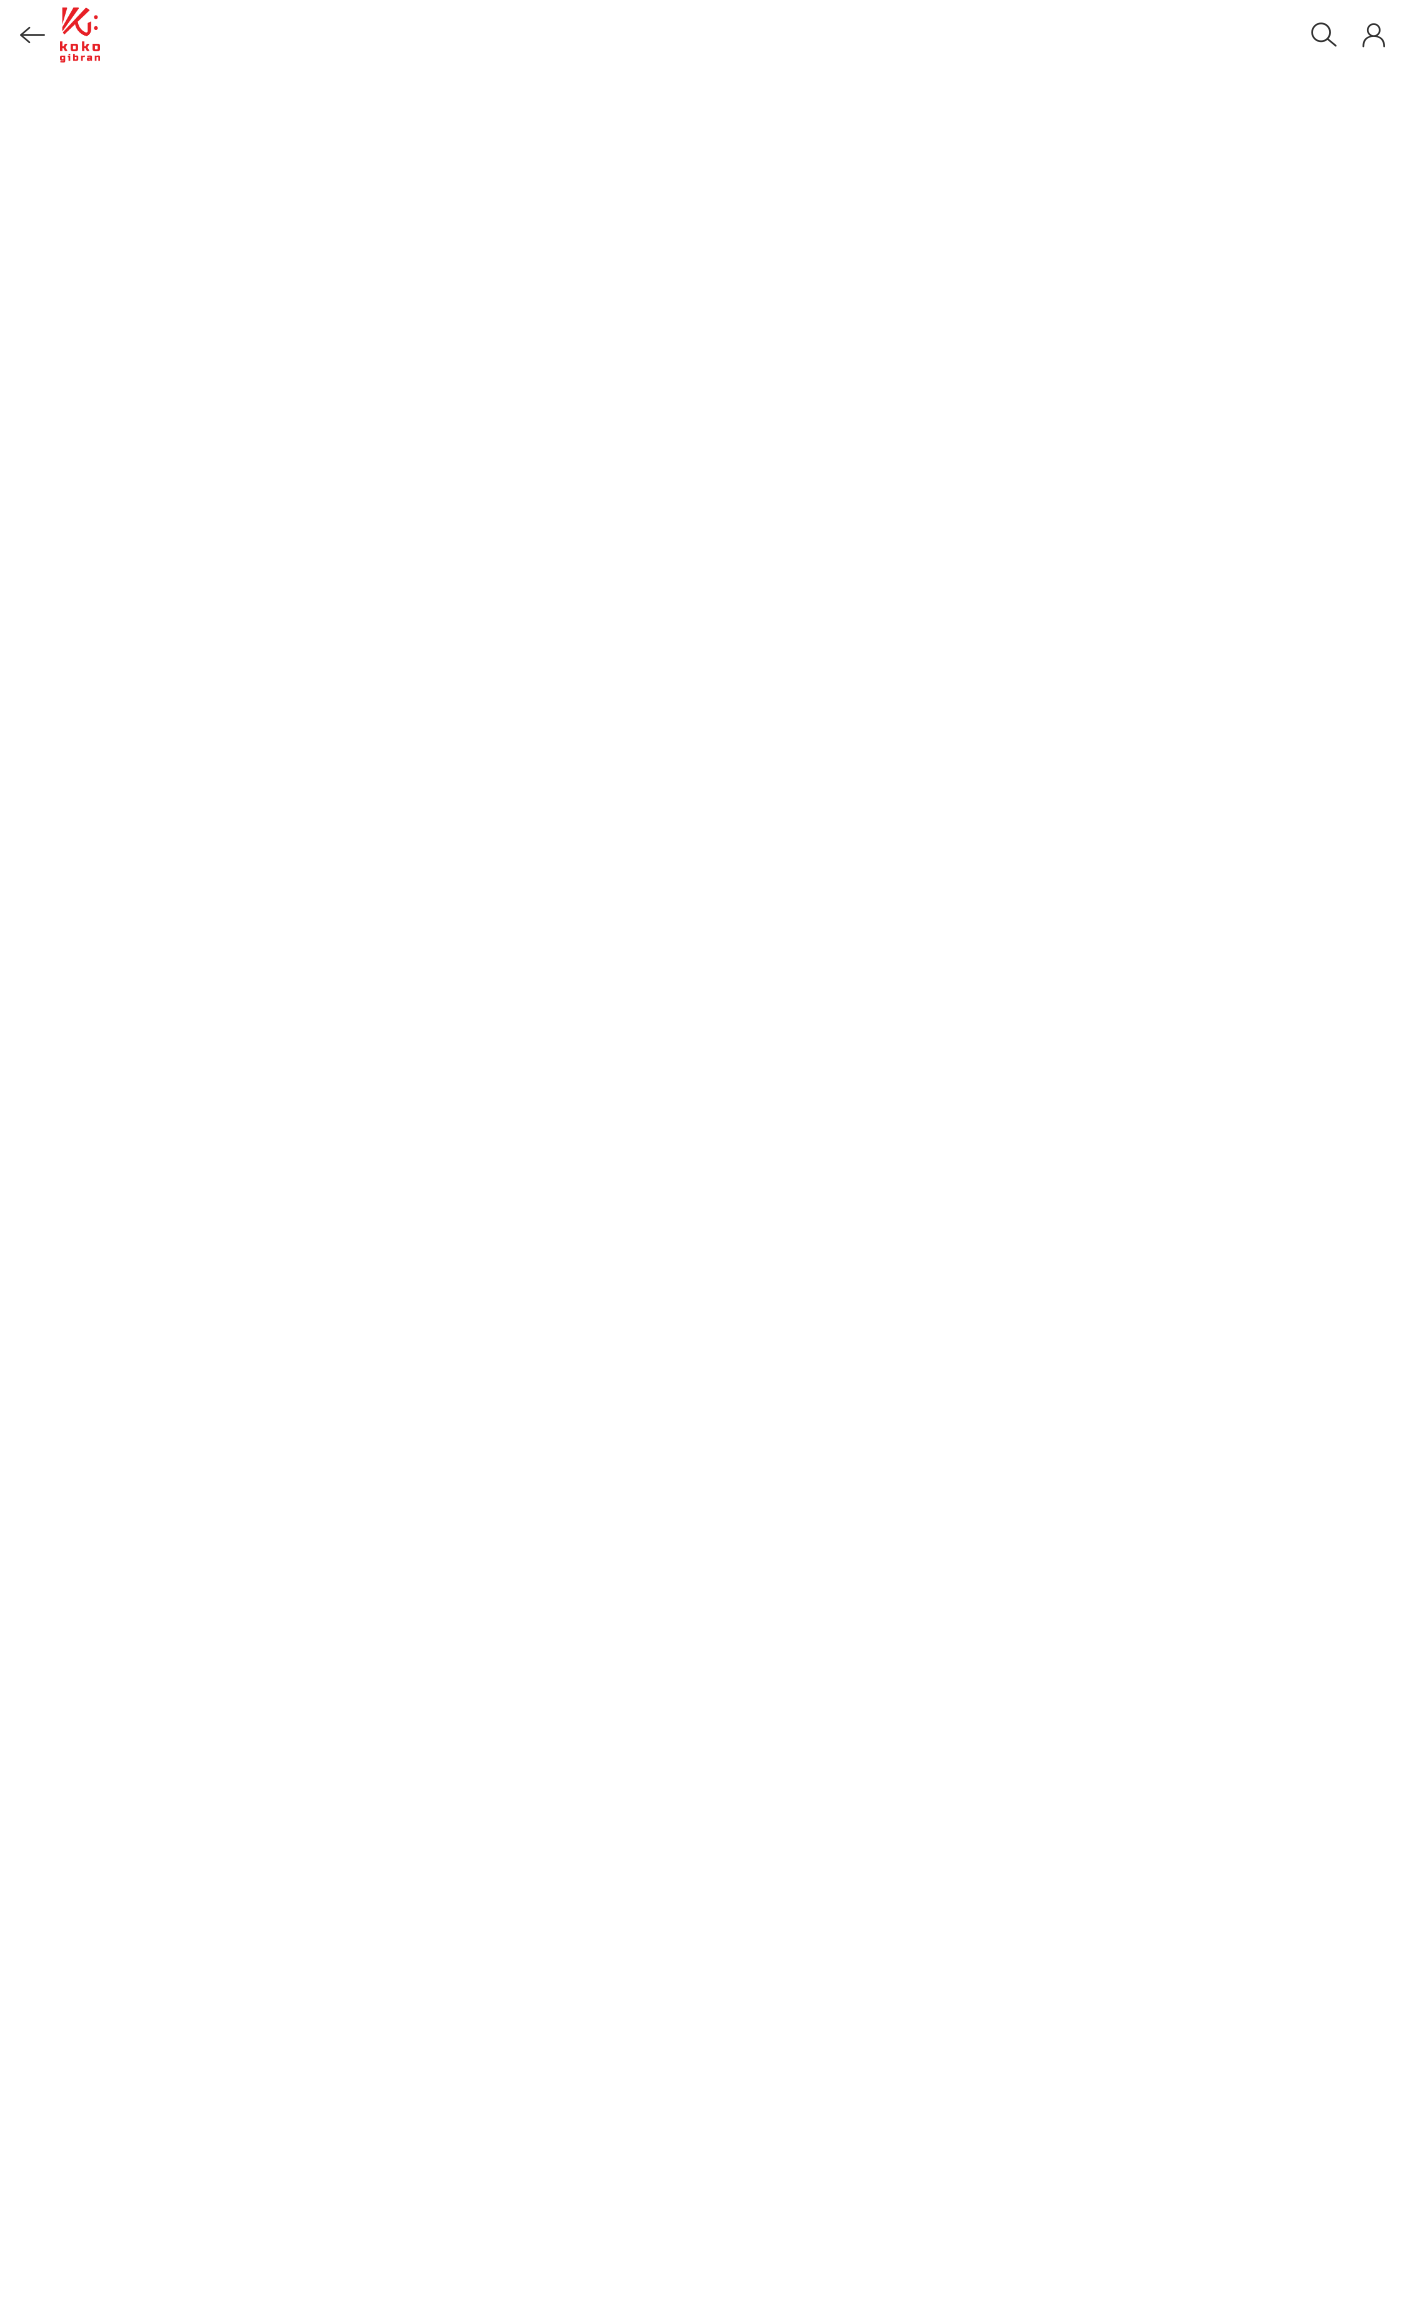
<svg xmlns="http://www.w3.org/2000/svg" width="1406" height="2298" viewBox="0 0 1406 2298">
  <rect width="100%" height="100%" fill="rgb(255,255,255)"/>
  <image x="20" y="26" width="25" height="18" href="pic1.png"/>
  <image x="60" y="7" width="40" height="56" href="pic2.png"/>
  <image x="1311" y="22" width="26" height="25" href="pic3.png"/>
  <image x="1362" y="23" width="23" height="25" href="pic4.png"/>
</svg>
